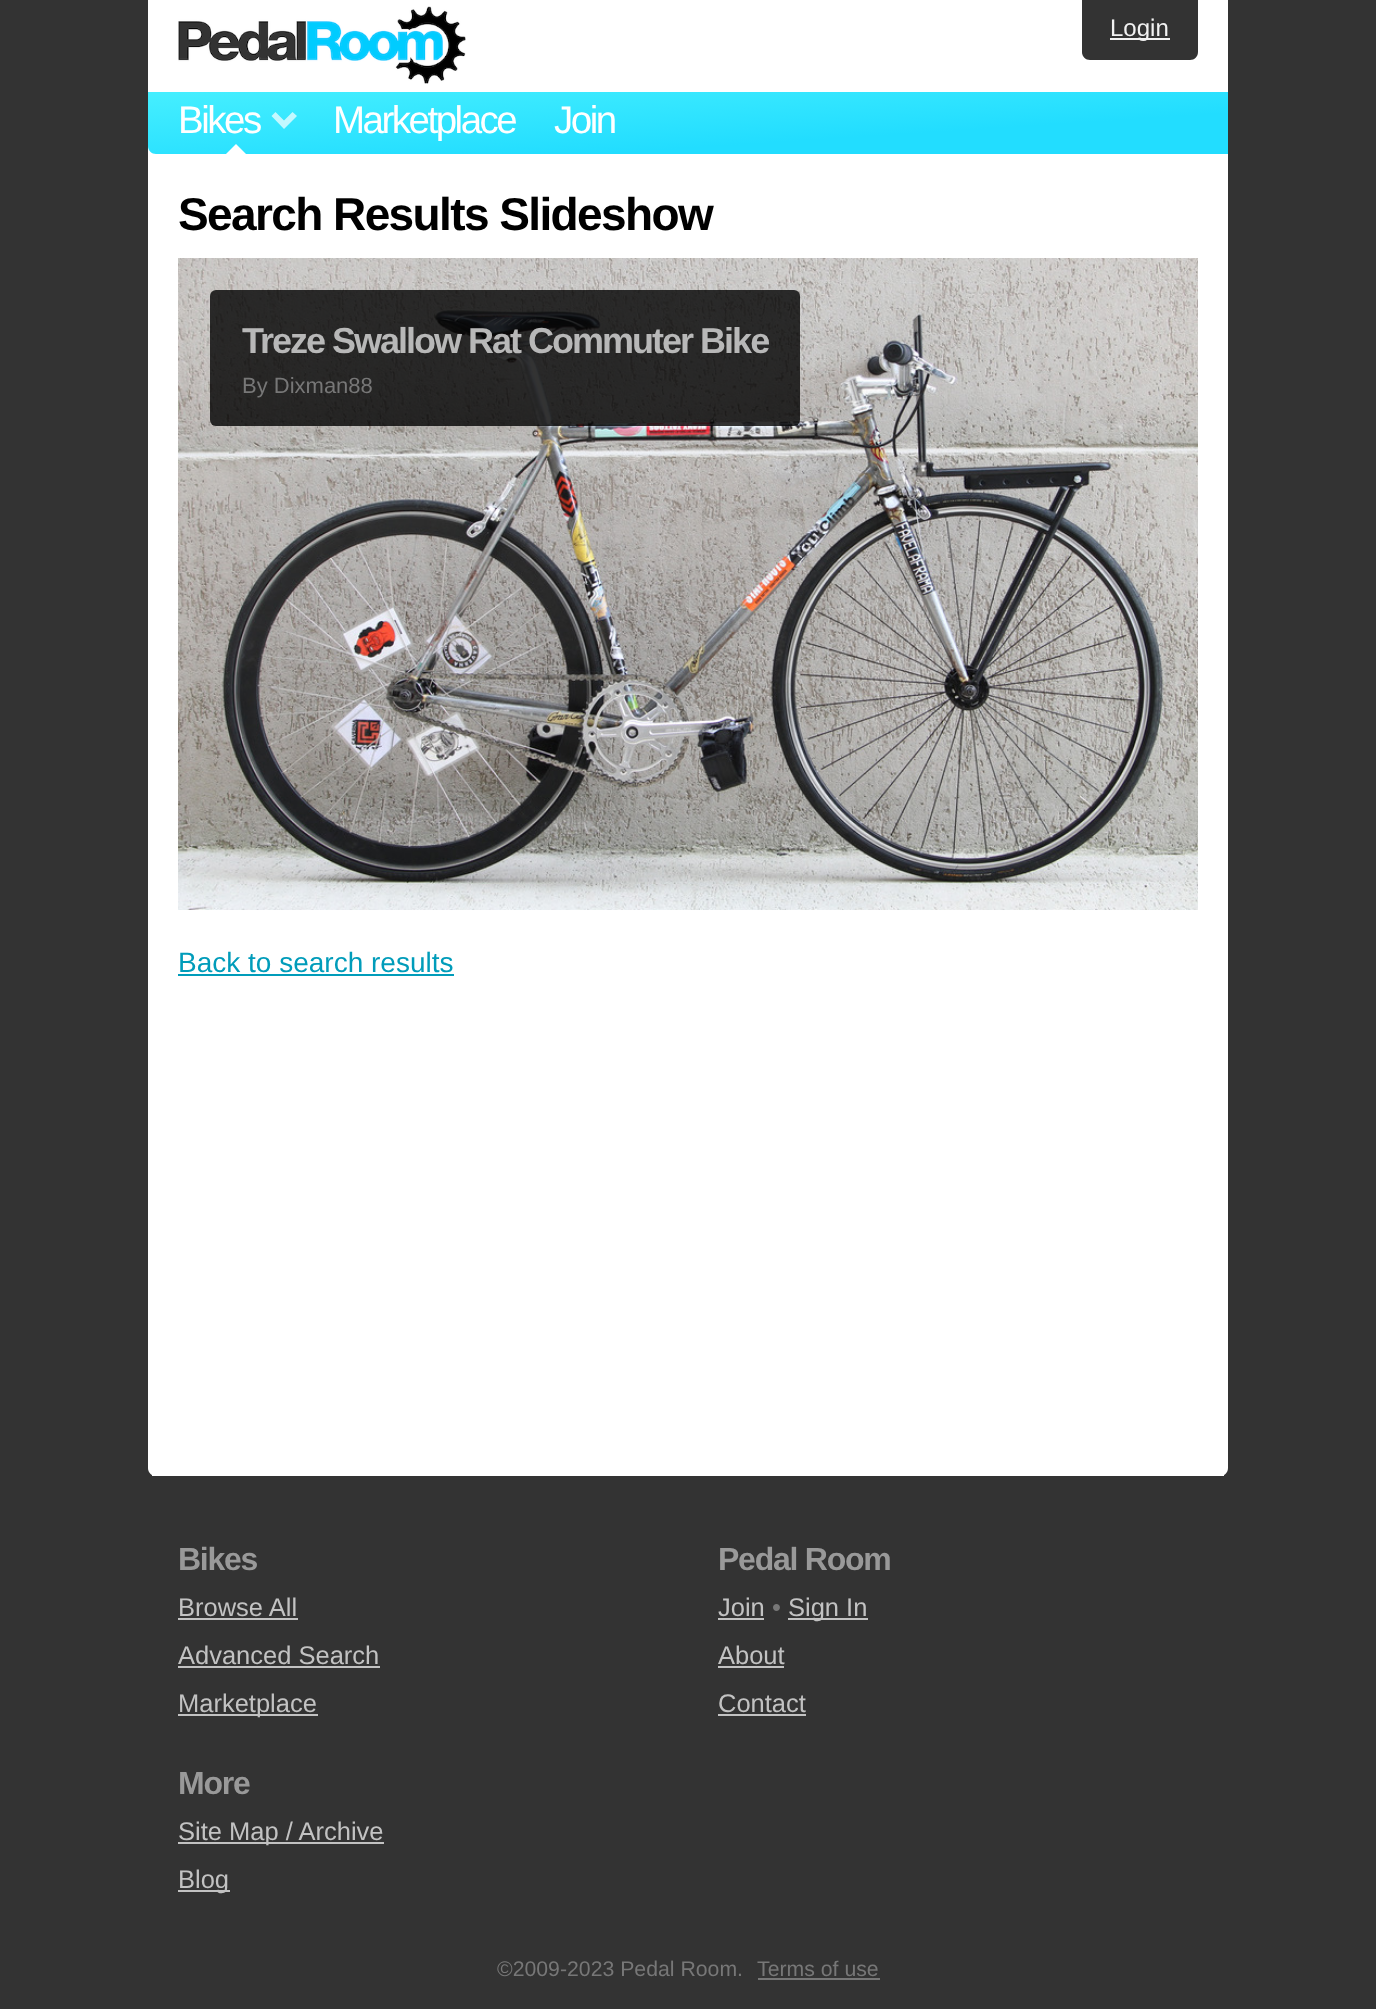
<svg xmlns="http://www.w3.org/2000/svg" width="1376" height="2009" viewBox="0 0 1376 2009">
  <defs>
    <linearGradient id="g1" gradientUnits="userSpaceOnUse" x1="684" y1="61" x2="692" y2="185"><stop offset="0" stop-color="rgb(68,238,255)"/><stop offset="0.7" stop-color="rgb(34,221,255)"/></linearGradient>
  </defs>
  <rect width="100%" height="100%" fill="rgb(51,51,51)"/>
  <rect x="148" y="0" width="1080" height="180" fill="rgb(255,255,255)"/>
  <image x="178" y="6" width="288" height="78" href="pic1.png"/>
  <path d="M1082 0H1198V52C1198 56.5 1194.5 60 1190 60H1090C1085.5 60 1082 56.5 1082 52Z" fill="rgb(51,51,51)"/>
  <rect x="1110" y="38" width="60" height="2" fill="rgb(242,242,242)"/>
  <text x="1110" y="36" font-family="Liberation Sans" font-size="24" fill="rgb(242,242,242)">Login</text>
  <path d="M148 92H1228V154H156C151.5 154 148 150.5 148 146Z" fill="url(#g1)"/>
  <text x="178" y="133" font-family="Liberation Sans" font-size="38.5" letter-spacing="-2.5" fill="rgb(255,255,255)">Bikes</text>
  <path d="M297 116L284 129V120.5L292.5 112ZM284 129L271.5 116L275.5 112L284 120.5Z" fill="rgba(255,255,255,0.7)"/>
  <path d="M246 154H226L236 144Z" fill="rgb(255,255,255)"/>
  <g font-family="Liberation Sans" font-size="38.5" letter-spacing="-2.5" fill="rgb(255,255,255)">
    <text x="333" y="133">Marketplace</text>
    <text x="554" y="133">Join</text>
  </g>
  <path d="M148 180H1228V1468C1228 1472.5 1224.5 1476 1220 1476H156C151.5 1476 148 1472.5 148 1468Z" fill="rgb(255,255,255)"/>
  <rect x="152" y="1475" width="1072" height="1" fill="rgb(255,255,255)"/>
  <text x="178" y="230" font-family="Liberation Sans" font-size="46" font-weight="bold" letter-spacing="-1.6" fill="rgb(0,0,0)">Search Results Slideshow</text>
  <image x="178" y="258" width="1020" height="652" href="pic2.png"/>
  <rect x="210" y="290" width="590" height="136" rx="6" fill="rgba(0,0,0,0.8)"/>
  <text x="242" y="353" font-family="Liberation Sans" font-size="36" font-weight="bold" letter-spacing="-2" fill="rgb(184,184,184)">Treze Swallow Rat Commuter Bike</text>
  <text x="242" y="393" font-family="Liberation Sans" font-size="22" fill="rgb(119,119,119)">By Dixman88</text>
  <text x="178" y="972" font-family="Liberation Sans" font-size="28" fill="rgb(0,156,186)">Back to search results</text>
  <rect x="178" y="974" width="276" height="2" fill="rgb(0,156,186)"/>
  <text x="178" y="1570" font-family="Liberation Sans" font-size="32" font-weight="bold" letter-spacing="-1.25" fill="rgb(153,153,153)">Bikes</text>
  <text x="178" y="1616" font-family="Liberation Sans" font-size="25.5" fill="rgb(194,194,194)">Browse All</text>
  <rect x="178" y="1618" width="120" height="2" fill="rgb(194,194,194)"/>
  <text x="178" y="1664" font-family="Liberation Sans" font-size="25.5" fill="rgb(194,194,194)">Advanced Search</text>
  <rect x="178" y="1666" width="202" height="2" fill="rgb(194,194,194)"/>
  <rect x="178" y="1714" width="140" height="2" fill="rgb(194,194,194)"/>
  <text x="178" y="1712" font-family="Liberation Sans" font-size="25.5" fill="rgb(194,194,194)">Marketplace</text>
  <text x="718" y="1570" font-family="Liberation Sans" font-size="32" font-weight="bold" letter-spacing="-1.25" fill="rgb(153,153,153)">Pedal Room</text>
  <text x="718" y="1616" font-family="Liberation Sans" font-size="25.5" fill="rgb(194,194,194)">Join</text>
  <rect x="718" y="1618" width="46" height="2" fill="rgb(194,194,194)"/>
  <text x="772" y="1616" font-family="Liberation Sans" font-size="25.5" fill="rgb(119,119,119)">•</text>
  <rect x="788" y="1618" width="80" height="2" fill="rgb(194,194,194)"/>
  <g font-family="Liberation Sans" font-size="25.5" fill="rgb(194,194,194)">
    <text x="788" y="1616">Sign In</text>
    <text x="718" y="1664">About</text>
  </g>
  <rect x="718" y="1666" width="66" height="2" fill="rgb(194,194,194)"/>
  <text x="718" y="1712" font-family="Liberation Sans" font-size="25.5" fill="rgb(194,194,194)">Contact</text>
  <rect x="718" y="1714" width="88" height="2" fill="rgb(194,194,194)"/>
  <text x="178" y="1794" font-family="Liberation Sans" font-size="32" font-weight="bold" letter-spacing="-1.25" fill="rgb(153,153,153)">More</text>
  <rect x="178" y="1842" width="206" height="2" fill="rgb(194,194,194)"/>
  <text x="178" y="1840" font-family="Liberation Sans" font-size="25.5" fill="rgb(194,194,194)">Site Map / Archive</text>
  <rect x="178" y="1890" width="52" height="2" fill="rgb(194,194,194)"/>
  <text x="178" y="1888" font-family="Liberation Sans" font-size="25.5" fill="rgb(194,194,194)">Blog</text>
  <g font-family="Liberation Sans" font-size="21.25" fill="rgb(119,119,119)">
    <text x="497" y="1976">©2009-2023 Pedal Room.</text>
    <text x="757" y="1976">Terms of use</text>
  </g>
  <rect x="758" y="1978" width="122" height="2" fill="rgb(119,119,119)"/>
</svg>
